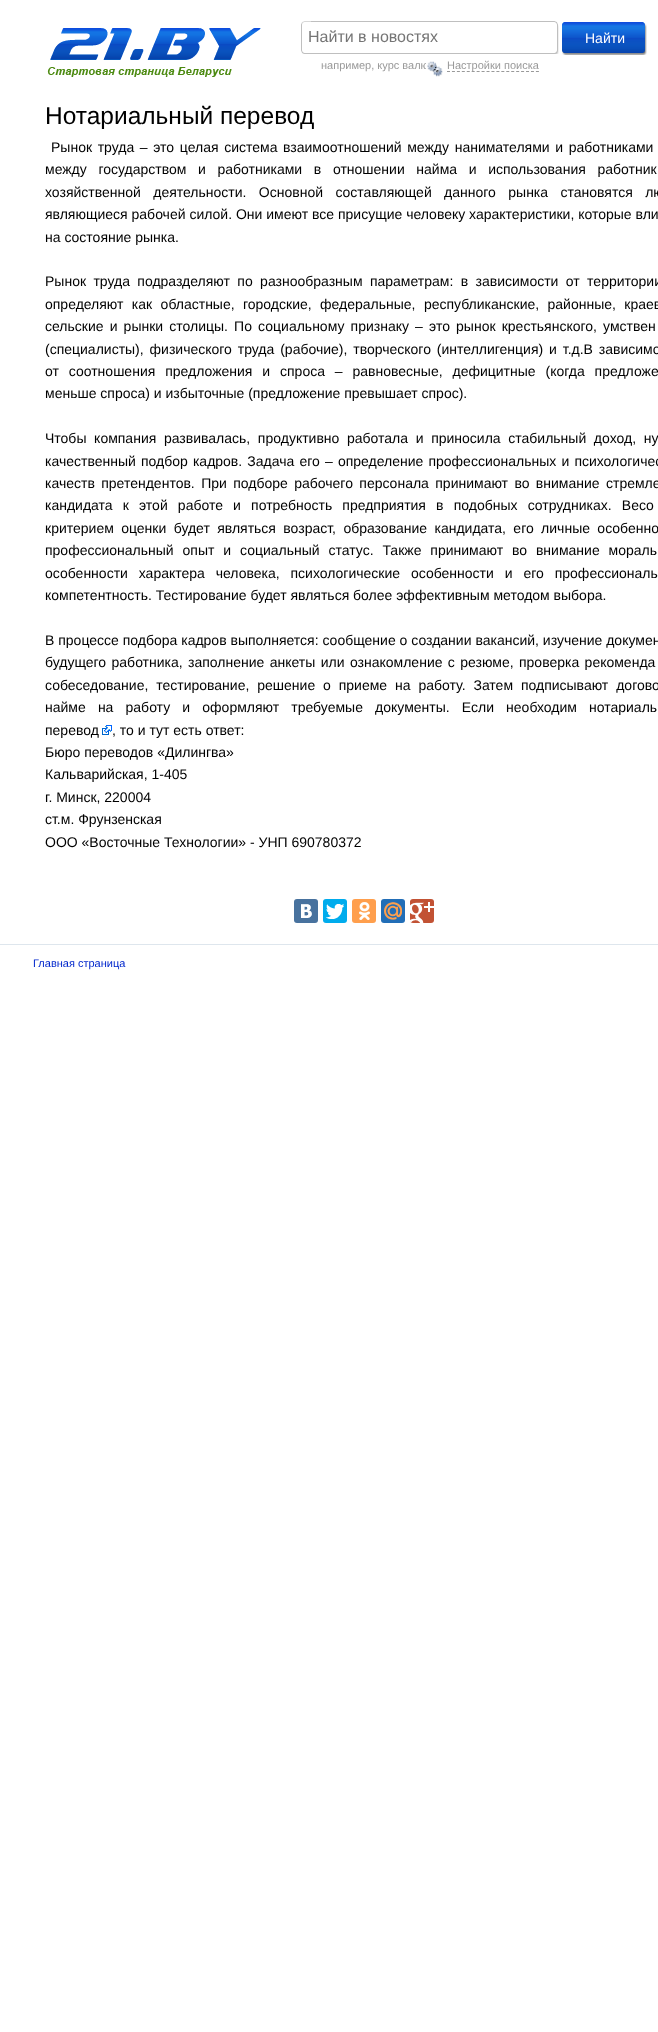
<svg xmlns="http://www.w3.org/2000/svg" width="658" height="2032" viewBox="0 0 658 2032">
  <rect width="100%" height="100%" fill="rgb(255,255,255)"/>
  <image x="47" y="28" width="214" height="49" href="pic1.png"/>
  <image x="311" y="21" width="248" height="33" href="pic2.png"/>
  <image x="300" y="21" width="11" height="33" href="pic3.png"/>
  <text x="308" y="42" font-family="Liberation Sans" font-size="16" fill="rgb(117,117,117)">Найти в новостях</text>
  <image x="562" y="22" width="85" height="33" href="pic4.png"/>
  <text x="585" y="43" font-family="Liberation Sans" font-size="14" fill="rgb(255,255,255)">Найти</text>
  <text x="321" y="69" font-family="Liberation Sans" font-size="11" fill="rgb(153,153,153)">например, курс валю</text>
  <image x="426" y="61" width="17" height="16" href="pic5.png"/>
  <path d="M447 71.5H539" fill="none" stroke="rgb(153,153,153)" stroke-dasharray="3 1.94"/>
  <text x="447" y="69" font-family="Liberation Sans" font-size="11" fill="rgb(153,153,153)">Настройки поиска</text>
  <text x="45" y="124" font-family="Liberation Sans" font-size="24.5" fill="rgb(0,0,0)">Нотариальный перевод</text>
  <g font-family="Liberation Sans" font-size="14" fill="rgb(0,0,0)">
    <text x="51" y="152" word-spacing="1.75">Рынок труда – это целая система взаимоотношений между нанимателями и работниками</text>
    <text>
      <tspan x="45" y="174" word-spacing="7.75">между государством и работниками в отношении найма и использования работник</tspan>
      <tspan x="45" y="197" word-spacing="8.5">хозяйственной деятельности. Основной составляющей данного рынка становятся лю</tspan>
      <tspan x="45" y="219">являющиеся рабочей силой. Они имеют все присущие человеку характеристики, которые вли</tspan>
      <tspan x="45" y="242">на состояние рынка.</tspan>
    </text>
    <text>
      <tspan x="45" y="286" word-spacing="3.5">Рынок труда подразделяют по разнообразным параметрам: в зависимости от территории</tspan>
      <tspan x="45" y="309" word-spacing="4.5">определяют как областные, городские, федеральные, республиканские, районные, краев</tspan>
      <tspan x="45" y="331" word-spacing="2.25">сельские и рынки столицы. По социальному признаку – это рынок крестьянского, умствен</tspan>
      <tspan x="45" y="354" word-spacing="2">(специалисты), физического труда (рабочие), творческого (интеллигенция) и т.д.В зависимо</tspan>
      <tspan x="45" y="376" word-spacing="6">от соотношения предложения и спроса – равновесные, дефицитные (когда предложе</tspan>
      <tspan x="45" y="398">меньше спроса) и избыточные (предложение превышает спрос).</tspan>
    </text>
    <text>
      <tspan x="45" y="443" word-spacing="3.75">Чтобы компания развивалась, продуктивно работала и приносила стабильный доход, ну</tspan>
      <tspan x="45" y="466" word-spacing="1.25">качественный подбор кадров. Задача его – определение профессиональных и психологичес</tspan>
      <tspan x="45" y="488" word-spacing="2.5">качеств претендентов. При подборе рабочего персонала принимают во внимание стремле</tspan>
      <tspan x="45" y="510" word-spacing="6.25">кандидата к этой работе и потребность предприятия в подобных сотрудниках. Весо</tspan>
      <tspan x="45" y="533" word-spacing="3.5">критерием оценки будет являться возраст, образование кандидата, его личные особенно</tspan>
      <tspan x="45" y="555" word-spacing="5">профессиональный опыт и социальный статус. Также принимают во внимание мораль</tspan>
      <tspan x="45" y="578" word-spacing="7">особенности характера человека, психологические особенности и его профессиональ</tspan>
      <tspan x="45" y="600">компетентность. Тестирование будет являться более эффективным методом выбора.</tspan>
    </text>
    <text>
      <tspan x="45" y="645">В процессе подбора кадров выполняется: сообщение о создании вакансий, изучение докумен</tspan>
      <tspan x="45" y="667" word-spacing="1.5">будущего работника, заполнение анкеты или ознакомление с резюме, проверка рекоменда</tspan>
      <tspan x="45" y="690" word-spacing="4">собеседование, тестирование, решение о приеме на работу. Затем подписывают догово</tspan>
      <tspan x="45" y="712" word-spacing="8.25">найме на работу и оформляют требуемые документы. Если необходим</tspan>
    </text>
    <text x="589" y="712">нотариаль</text>
    <text x="45" y="735">перевод</text>
  </g>
  <image x="102" y="725" width="10" height="10" href="pic6.png"/>
  <g font-family="Liberation Sans" font-size="14" fill="rgb(0,0,0)">
    <text x="112" y="735">, то и тут есть ответ:</text>
    <text>
      <tspan x="45" y="757">Бюро переводов «Дилингва»</tspan>
      <tspan x="45" y="779">Кальварийская, 1-405</tspan>
      <tspan x="45" y="802">г. Минск, 220004</tspan>
      <tspan x="45" y="824">ст.м. Фрунзенская</tspan>
      <tspan x="45" y="847">ООО «Восточные Технологии» - УНП 690780372</tspan>
    </text>
  </g>
  <rect x="294" y="899" width="24" height="24" rx="3" fill="rgb(72,114,158)"/>
  <image x="301" y="904" width="11" height="14" href="pic7.png"/>
  <rect x="323" y="899" width="24" height="24" rx="3" fill="rgb(0,172,237)"/>
  <image x="326" y="904" width="18" height="15" href="pic8.png"/>
  <rect x="352" y="899" width="24" height="24" rx="3" fill="rgb(255,159,77)"/>
  <image x="359" y="902" width="11" height="18" href="pic9.png"/>
  <rect x="381" y="899" width="24" height="24" rx="3" fill="rgb(34,110,183)"/>
  <image x="384" y="902" width="18" height="18" href="pic10.png"/>
  <rect x="410" y="899" width="24" height="24" rx="3" fill="rgb(194,82,52)"/>
  <image x="410" y="902" width="24" height="21" href="pic11.png"/>
  <rect x="0" y="944" width="658" height="1" fill="rgb(222,230,237)"/>
  <text x="33" y="967" font-family="Liberation Sans" font-size="11" fill="rgb(0,38,204)">Главная страница</text>
</svg>
